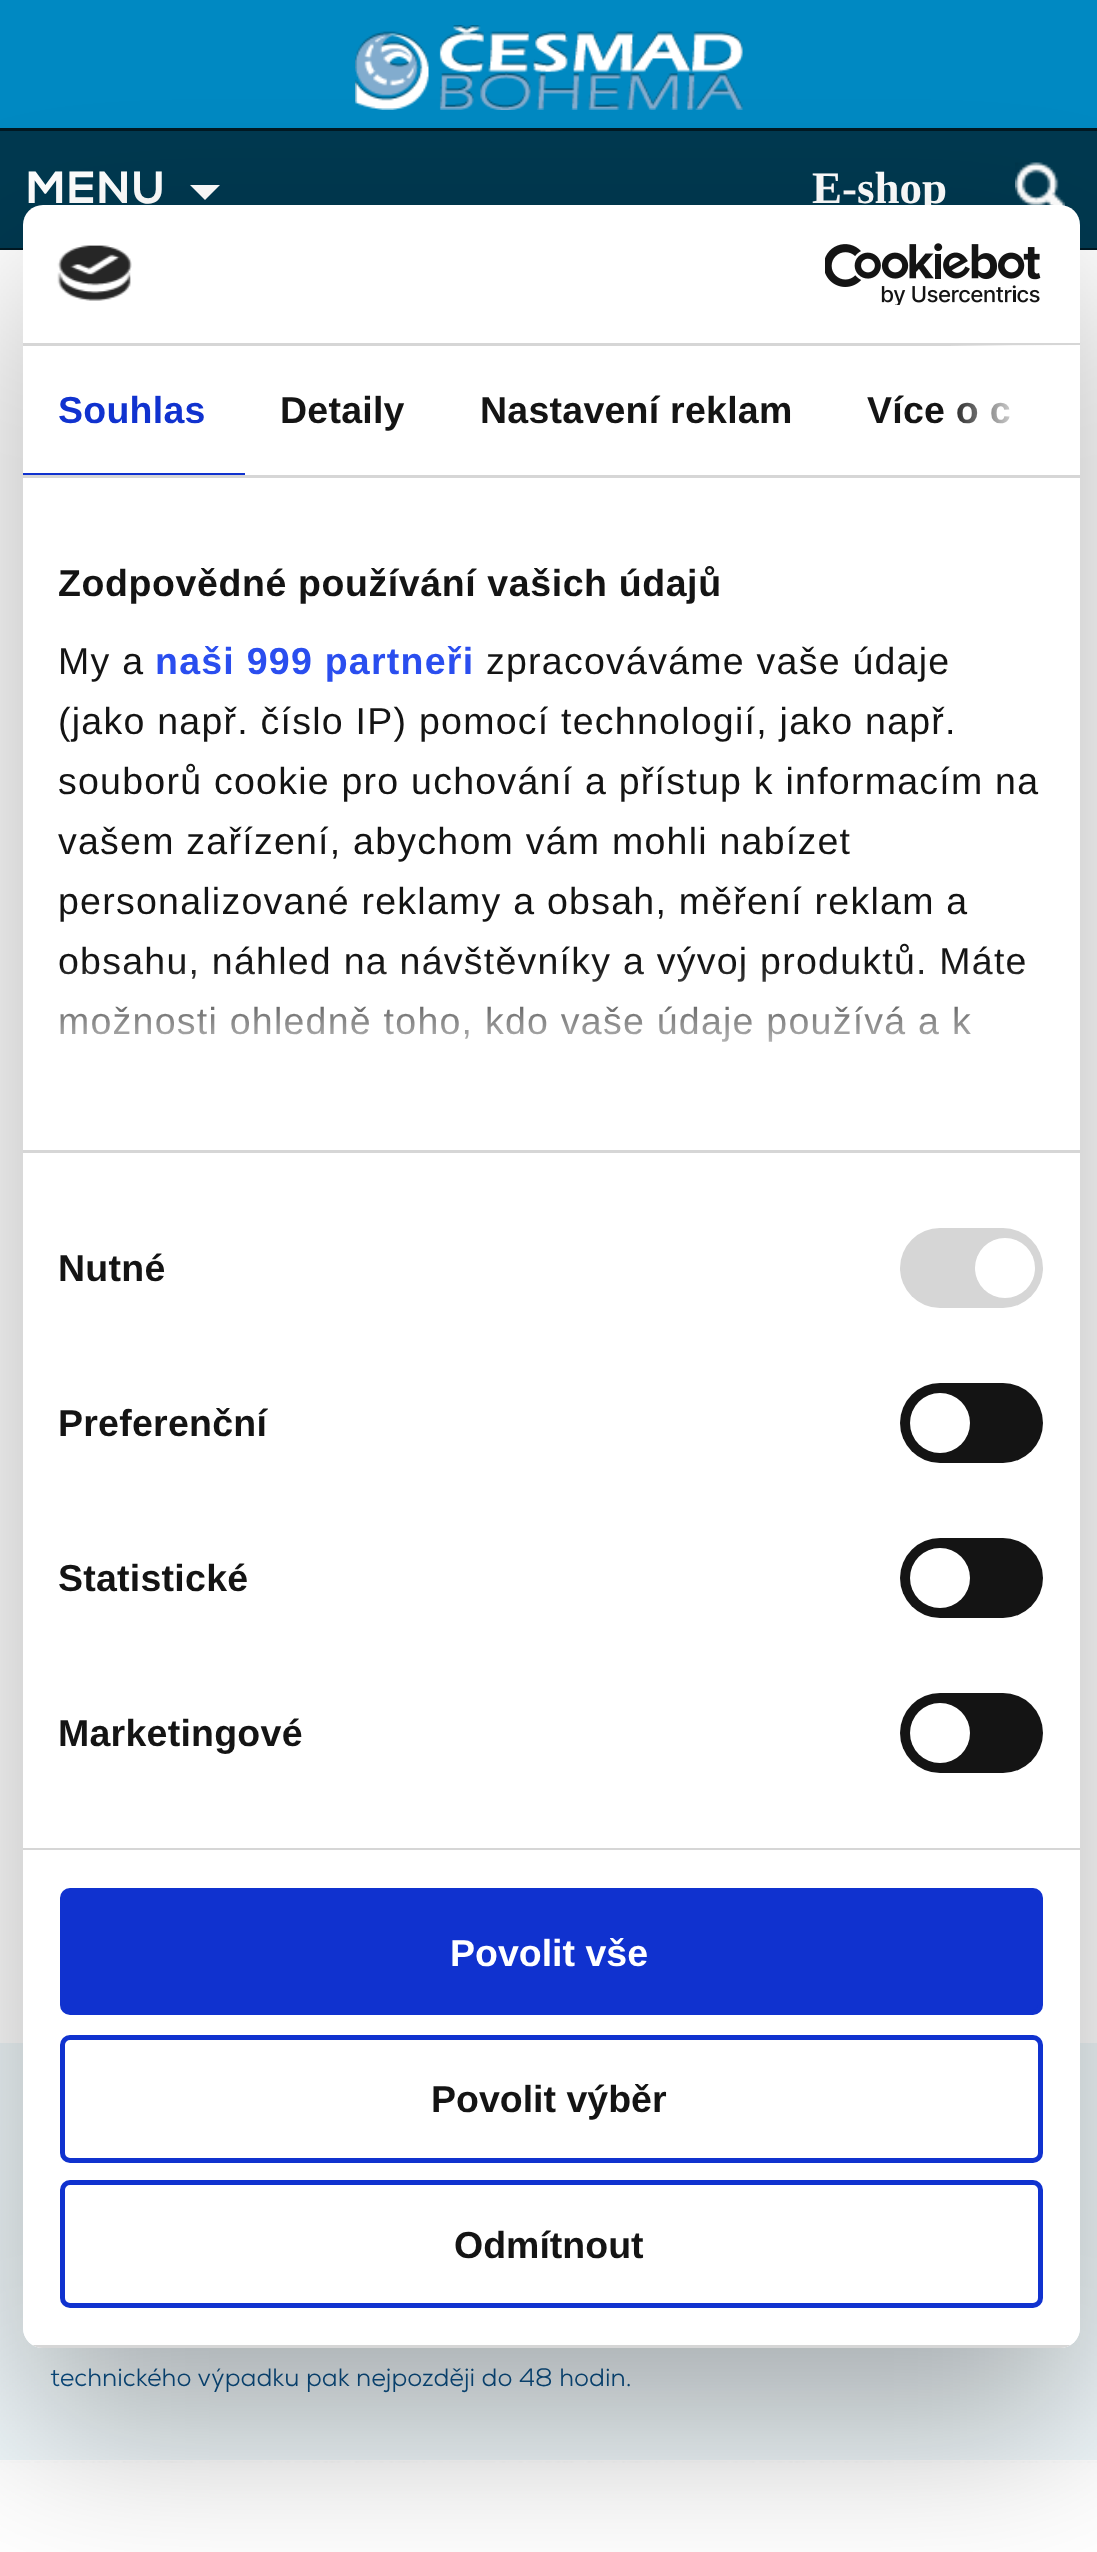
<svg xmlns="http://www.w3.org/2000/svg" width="1097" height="2552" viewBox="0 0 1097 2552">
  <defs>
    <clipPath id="clip1"><path d="M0 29H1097V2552H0ZM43 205H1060C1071 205 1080 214 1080 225V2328C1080 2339 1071 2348 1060 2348H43C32 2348 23 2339 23 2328V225C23 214 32 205 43 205Z" clip-rule="evenodd"/></clipPath>
    <linearGradient id="g1" gradientUnits="userSpaceOnUse" x1="1079" y1="411" x2="946" y2="411"><stop offset="0" stop-color="rgb(255,255,255)"/><stop offset="0.5" stop-color="rgb(255,255,255)" stop-opacity="0.8"/><stop offset="1" stop-color="rgb(255,255,255)" stop-opacity="0"/></linearGradient>
    <linearGradient id="g2" gradientUnits="userSpaceOnUse" x1="534" y1="1151" x2="534" y2="963"><stop offset="0" stop-color="rgb(255,255,255)"/><stop offset="0.5" stop-color="rgb(255,255,255)" stop-opacity="0.8"/><stop offset="1" stop-color="rgb(255,255,255)" stop-opacity="0"/></linearGradient>
    <clipPath id="clip2"><rect x="23" y="205" width="1057" height="2143" rx="20"/></clipPath>
  </defs>
  <rect width="100%" height="100%" fill="rgb(255,255,255)"/>
  <image x="0" y="2460" width="1097" height="3" href="pic1.png"/>
  <rect x="0" y="0" width="1097" height="128" fill="rgb(0,137,194)"/>
  <image x="355" y="25" width="388" height="85" href="pic2.png"/>
  <rect x="0" y="131" width="1097" height="117" fill="rgb(0,57,80)"/>
  <rect x="0" y="128" width="1097" height="3" fill="rgb(0,25,35)"/>
  <rect x="0" y="248" width="1097" height="2" fill="rgb(0,25,35)"/>
  <text x="25" y="203" font-family="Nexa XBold" font-size="45" font-weight="bold" fill="rgb(255,255,255)">MENU</text>
  <path d="M190 185H220L205 200Z" fill="rgb(255,255,255)"/>
  <text x="812" y="203" font-family="Liberation Serif" font-size="45" font-weight="bold" fill="rgb(255,255,255)">E-shop</text>
  <image x="1015" y="162" width="50" height="44" href="pic3.png"/>
  <rect x="0" y="2043" width="1097" height="417" fill="rgb(240,248,251)"/>
  <text x="50" y="2386" font-family="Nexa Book" font-size="25" fill="rgb(11,81,137)">technického výpadku pak nejpozději do 48 hodin.</text>
  <g clip-path="url(#clip1)">
    <rect x="23" y="285" width="1057" height="2143" rx="20" fill="rgba(0,0,0,0.3)" filter="blur(85px)"/>
  </g>
  <rect x="23" y="205" width="1057" height="2143" rx="20" fill="rgb(255,255,255)"/>
  <rect x="23" y="343" width="1057" height="3" fill="rgb(214,214,214)"/>
  <image x="57" y="245" width="75" height="56" href="pic4.png"/>
  <image x="825" y="243" width="216" height="62" href="pic5.png"/>
  <rect x="23" y="475" width="1057" height="3" fill="rgb(214,214,214)"/>
  <rect x="23" y="473" width="222" height="2" fill="rgb(16,50,207)"/>
  <text x="58" y="423" font-family="Liberation Sans" font-size="37.5" font-weight="bold" letter-spacing="0.25" fill="rgb(16,50,207)">Souhlas</text>
  <g font-family="Liberation Sans" font-size="37.5" font-weight="bold" letter-spacing="0.25" fill="rgb(20,20,20)">
    <text x="280" y="423">Detaily</text>
    <text x="480" y="423">Nastavení reklam</text>
    <text x="867" y="423">Více o c</text>
  </g>
  <rect x="951" y="345" width="129" height="79" fill="url(#g1)"/>
  <rect x="23" y="1150" width="1057" height="3" fill="rgb(214,214,214)"/>
  <text x="58" y="596" font-family="Liberation Sans" font-size="37.5" font-weight="bold" letter-spacing="0.6" fill="rgb(20,20,20)">Zodpovědné používání vašich údajů</text>
  <text x="58" y="674" font-family="Liberation Sans" font-size="37.5" letter-spacing="1.25" fill="rgb(20,20,20)">My a</text>
  <text x="155" y="674" font-family="Liberation Sans" font-size="37.5" font-weight="bold" letter-spacing="1.25" fill="rgb(42,78,239)">naši 999 partneři</text>
  <g font-family="Liberation Sans" font-size="37.5" letter-spacing="1.25" fill="rgb(20,20,20)">
    <text x="486" y="674">zpracováváme vaše údaje</text>
    <text>
      <tspan x="58" y="734">(jako např. číslo IP) pomocí technologií, jako např.</tspan>
      <tspan x="58" y="794">souborů cookie pro uchování a přístup k informacím na</tspan>
      <tspan x="58" y="854">vašem zařízení, abychom vám mohli nabízet</tspan>
      <tspan x="58" y="914">personalizované reklamy a obsah, měření reklam a</tspan>
      <tspan x="58" y="974">obsahu, náhled na návštěvníky a vývoj produktů. Máte</tspan>
      <tspan x="58" y="1034">možnosti ohledně toho, kdo vaše údaje používá a k</tspan>
    </text>
  </g>
  <rect x="59" y="966" width="965" height="76" fill="url(#g2)"/>
  <rect x="23" y="1848" width="1057" height="2" fill="rgb(214,214,214)"/>
  <text x="58" y="1281" font-family="Liberation Sans" font-size="37.5" font-weight="bold" letter-spacing="0.25" fill="rgb(20,20,20)">Nutné</text>
  <rect x="900" y="1228" width="143" height="80" rx="40" fill="rgb(214,214,214)"/>
  <circle cx="1005" cy="1268" r="30" fill="rgb(255,255,255)"/>
  <text x="58" y="1436" font-family="Liberation Sans" font-size="37.5" font-weight="bold" letter-spacing="0.25" fill="rgb(20,20,20)">Preferenční</text>
  <rect x="900" y="1383" width="143" height="80" rx="40" fill="rgb(20,20,20)"/>
  <circle cx="940" cy="1423" r="30" fill="rgb(255,255,255)"/>
  <text x="58" y="1591" font-family="Liberation Sans" font-size="37.5" font-weight="bold" letter-spacing="0.25" fill="rgb(20,20,20)">Statistické</text>
  <rect x="900" y="1538" width="143" height="80" rx="40" fill="rgb(20,20,20)"/>
  <circle cx="940" cy="1578" r="30" fill="rgb(255,255,255)"/>
  <text x="58" y="1746" font-family="Liberation Sans" font-size="37.5" font-weight="bold" letter-spacing="0.25" fill="rgb(20,20,20)">Marketingové</text>
  <rect x="900" y="1693" width="143" height="80" rx="40" fill="rgb(20,20,20)"/>
  <circle cx="940" cy="1733" r="30" fill="rgb(255,255,255)"/>
  <g clip-path="url(#clip2)">
    <rect x="32" y="2345" width="1039" height="3" fill="rgb(214,214,214)"/>
  </g>
  <rect x="62.5" y="1890.5" width="978" height="122" rx="7.5" fill="rgb(16,50,207)" stroke="rgb(16,50,207)" stroke-width="5"/>
  <text x="450" y="1966" font-family="Liberation Sans" font-size="37.5" font-weight="bold" fill="rgb(255,255,255)">Povolit vše</text>
  <rect x="62.5" y="2037.5" width="978" height="123" rx="7.5" fill="none" stroke="rgb(16,50,207)" stroke-width="5"/>
  <text x="431" y="2112" font-family="Liberation Sans" font-size="37.5" font-weight="bold" fill="rgb(20,20,20)">Povolit výběr</text>
  <rect x="62.5" y="2182.5" width="978" height="123" rx="7.5" fill="none" stroke="rgb(16,50,207)" stroke-width="5"/>
  <text x="454" y="2258" font-family="Liberation Sans" font-size="37.5" font-weight="bold" fill="rgb(20,20,20)">Odmítnout</text>
</svg>
